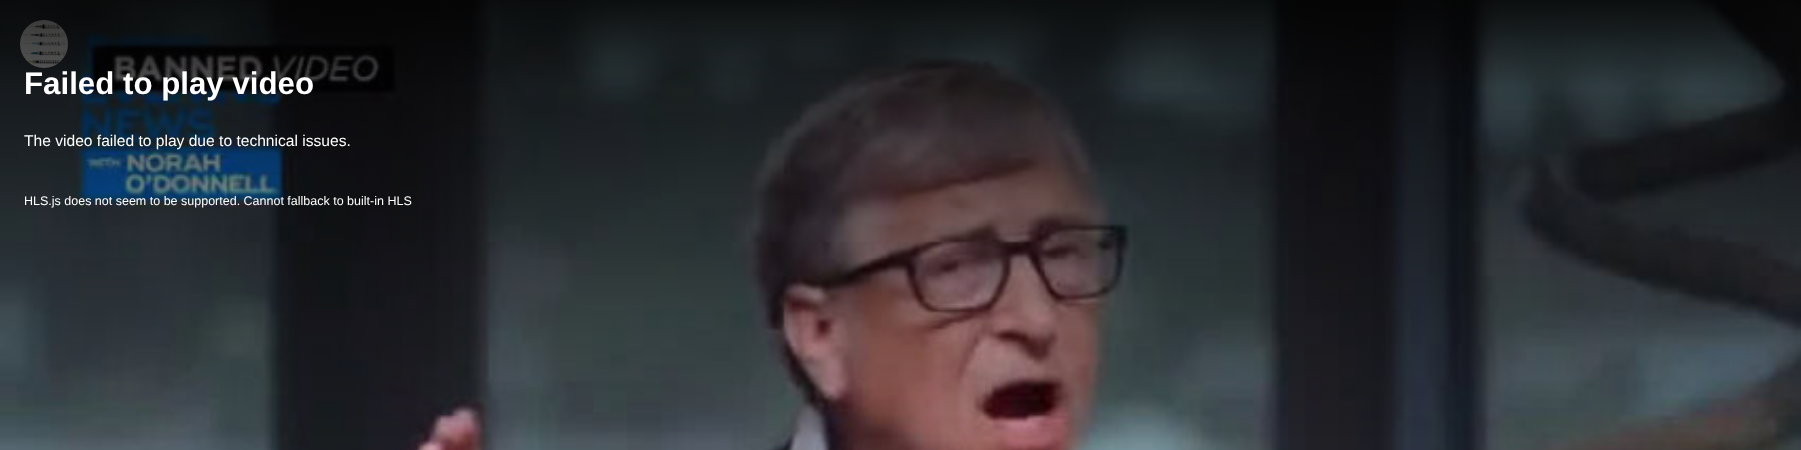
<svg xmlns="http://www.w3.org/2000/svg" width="1801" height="450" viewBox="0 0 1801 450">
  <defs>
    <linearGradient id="g1" gradientUnits="userSpaceOnUse" x1="901" y1="0" x2="901" y2="450"><stop offset="0" stop-color="rgb(0,0,0)" stop-opacity="0.8"/><stop offset="1" stop-color="rgb(0,0,0)" stop-opacity="0"/></linearGradient>
  </defs>
  <rect width="100%" height="100%" fill="rgb(255,255,255)"/>
  <image x="0" y="0" width="1801" height="450" href="pic1.png"/>
  <image x="20" y="20" width="48" height="48" href="pic2.png"/>
  <rect x="0" y="0" width="1801" height="438" fill="url(#g1)"/>
  <text x="24" y="94" font-family="Liberation Sans" font-size="31.25" font-weight="bold" fill="rgb(255,255,255)">Failed to play video</text>
  <text x="24" y="146" font-family="Liberation Sans" font-size="15.6" fill="rgb(255,255,255)">The video failed to play due to technical issues.</text>
  <text x="24" y="205" font-family="Liberation Sans" font-size="12.5" fill="rgb(255,255,255)">HLS.js does not seem to be supported. Cannot fallback to built-in HLS</text>
</svg>
